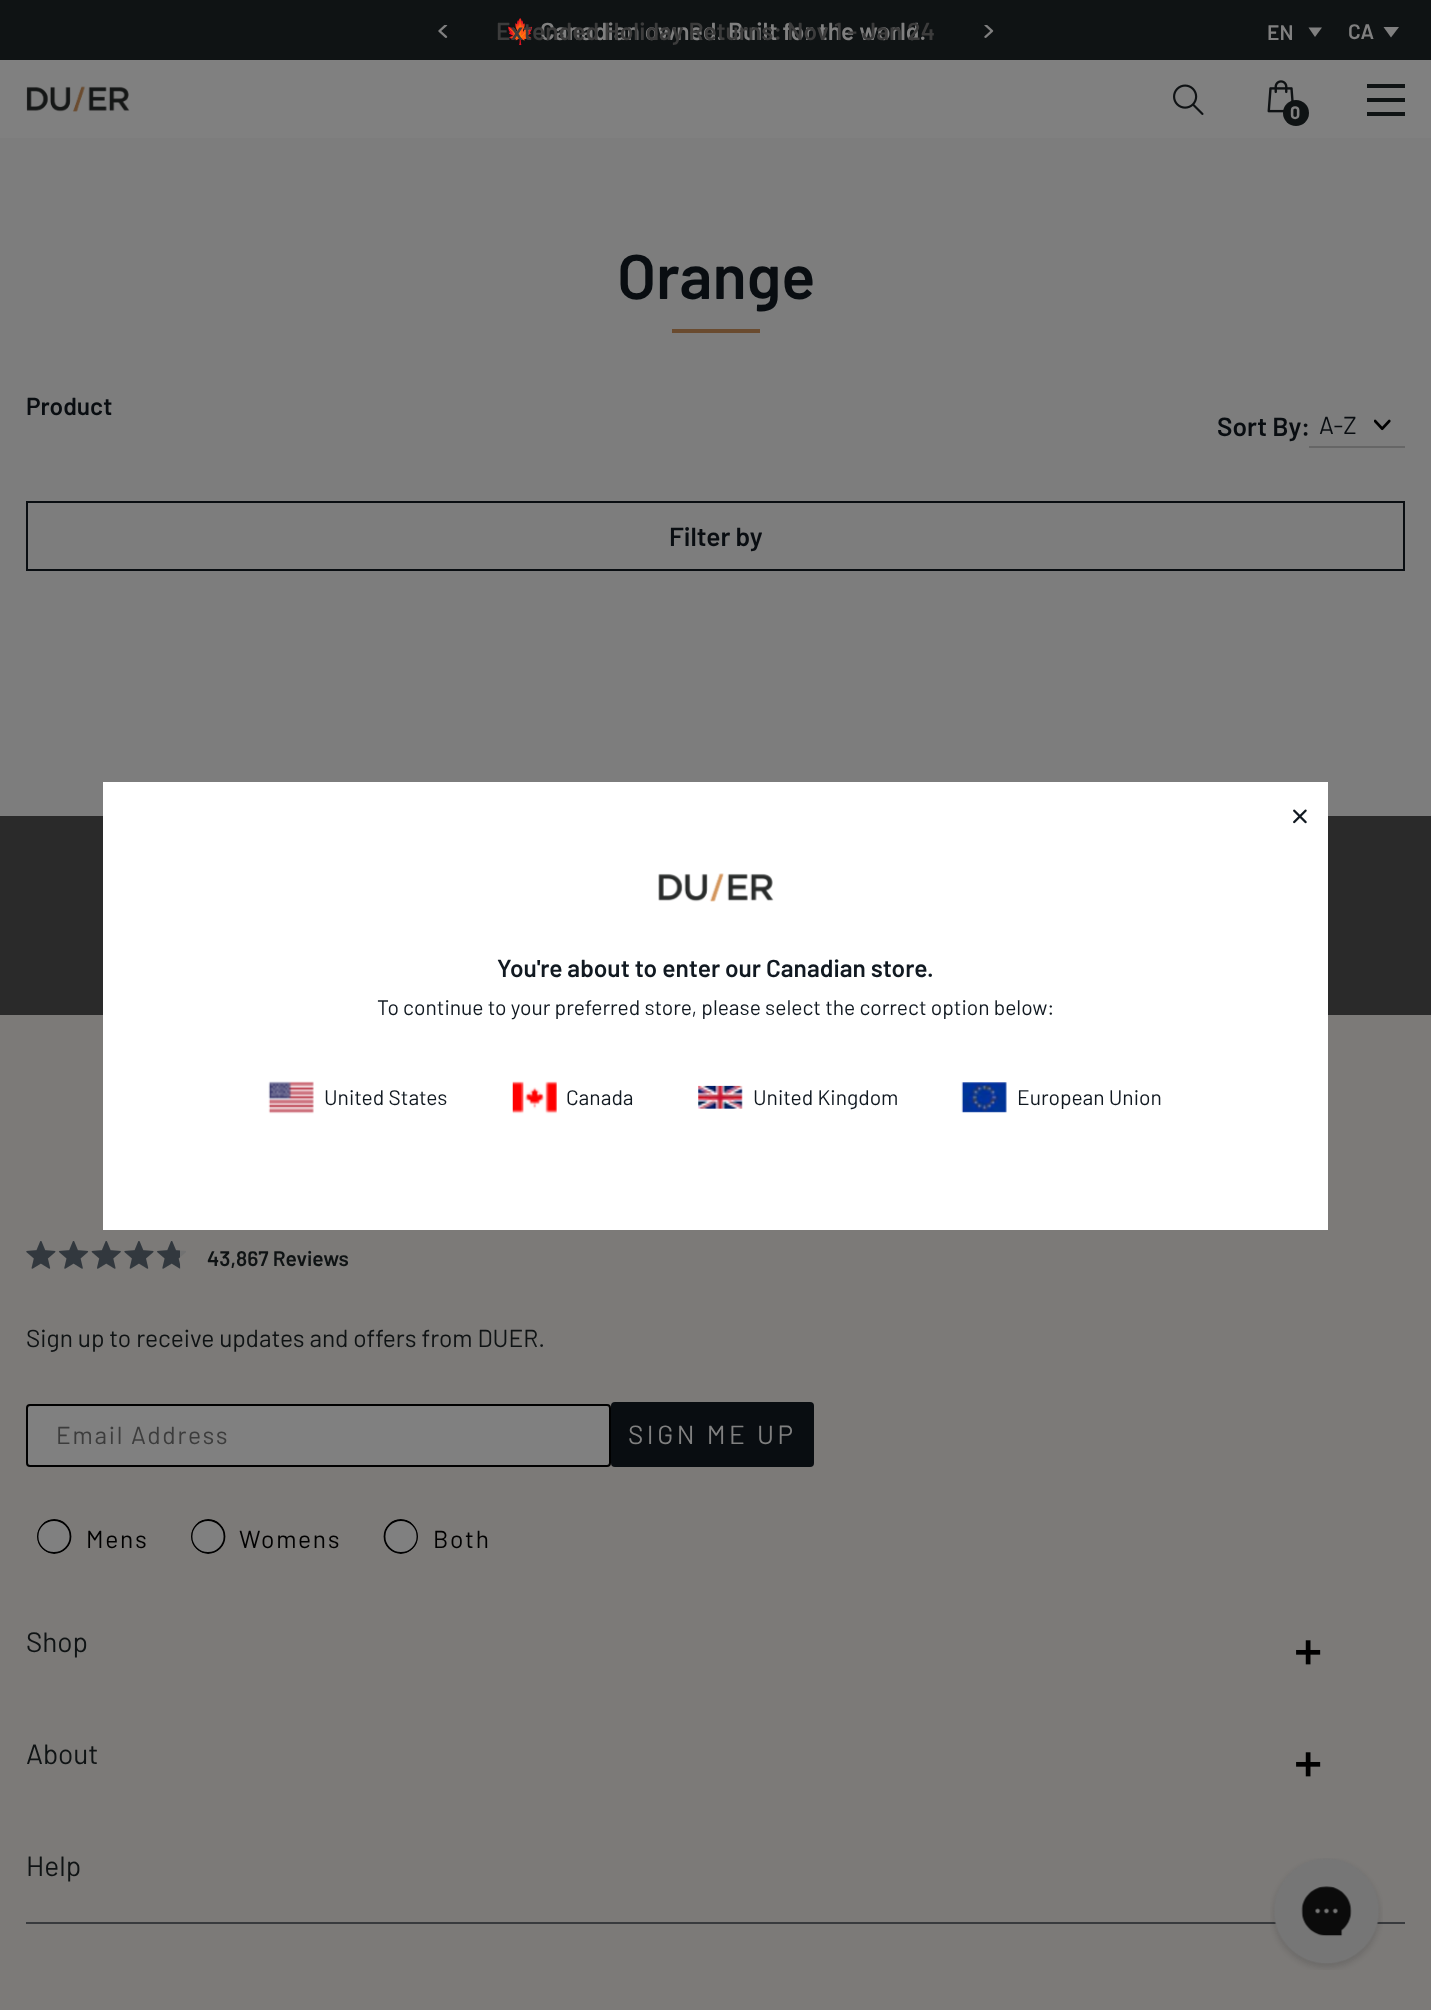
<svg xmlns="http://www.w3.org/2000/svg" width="1431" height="2010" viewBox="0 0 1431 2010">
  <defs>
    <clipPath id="clip1"><rect x="37" y="1519" width="35" height="35" rx="17.5"/></clipPath>
    <clipPath id="clip2"><rect x="191" y="1519" width="35" height="35" rx="17.5"/></clipPath>
    <clipPath id="clip3"><rect x="383" y="1519" width="35" height="35" rx="17.5"/></clipPath>
  </defs>
  <rect width="100%" height="100%" fill="rgb(128,128,128)"/>
  <rect x="0" y="0" width="1431" height="60" fill="rgb(15,19,20)"/>
  <text x="505" y="40" font-family="Noto Color Emoji" font-size="24.5" font-weight="bold" fill="rgb(128,128,128)">🍁</text>
  <text x="540" y="40" font-family="Barlow" font-size="24.5" font-weight="600" fill="rgb(128,128,128)">Canadian owned. Built for the world.</text>
  <text x="496" y="40" font-family="Barlow" font-size="24.5" font-weight="600" fill="rgb(60,60,60)">Extended Holiday Returns: Nov 1 - Jan 24</text>
  <image x="438" y="25" width="10" height="13" href="pic1.png"/>
  <image x="984" y="25" width="10" height="13" href="pic2.png"/>
  <text x="1267" y="40" font-family="Barlow" font-size="21" font-weight="600" fill="rgb(128,128,128)">EN</text>
  <path d="M1315 37L1308.5 27.5H1322Z" fill="rgb(128,128,128)"/>
  <text x="1348" y="39" font-family="Barlow" font-size="21" font-weight="600" fill="rgb(128,128,128)">CA</text>
  <path d="M1391 37.5L1383.5 27H1399Z" fill="rgb(128,128,128)"/>
  <image x="26" y="86" width="104" height="26" href="pic3.png"/>
  <image x="1173" y="84" width="31" height="31" href="pic4.png"/>
  <image x="1267" y="80" width="27" height="33" href="pic5.png"/>
  <circle cx="1296" cy="113" r="13" fill="rgb(15,19,20)"/>
  <text x="1290" y="119" font-family="Barlow" font-size="18" font-weight="bold" fill="rgb(128,128,128)">0</text>
  <rect x="1367" y="98" width="38" height="4" fill="rgb(15,19,20)"/>
  <rect x="1367" y="84" width="38" height="4" fill="rgb(15,19,20)"/>
  <rect x="1367" y="112" width="38" height="4" fill="rgb(15,19,20)"/>
  <rect x="0" y="138" width="1431" height="678" fill="rgb(125,125,125)"/>
  <text x="617" y="299" font-family="Barlow" font-size="63" font-weight="600" fill="rgb(9,13,17)">Orange</text>
  <rect x="672" y="329" width="88" height="4" fill="rgb(106,75,47)"/>
  <text x="26" y="415" font-family="Barlow" font-size="24.5" font-weight="600" fill="rgb(9,13,17)">Product</text>
  <text x="1217" y="436" font-family="Barlow" font-size="26.25" font-weight="600" fill="rgb(9,13,17)">Sort By:</text>
  <rect x="1309" y="446" width="96" height="2" fill="rgb(102,102,102)"/>
  <text x="1319" y="434" font-family="Barlow" font-size="24.5" fill="rgb(9,13,17)">A-Z</text>
  <image x="1374" y="419" width="17" height="12" href="pic6.png"/>
  <rect x="27" y="502" width="1377" height="68" fill="none" stroke="rgb(9,13,17)" stroke-width="2"/>
  <text x="669" y="546" font-family="Barlow" font-size="26.25" font-weight="600" fill="rgb(9,13,17)">Filter by</text>
  <rect x="0" y="816" width="1431" height="199" fill="rgb(42,42,42)"/>
  <rect x="0" y="1015" width="1431" height="995" fill="rgb(124,122,120)"/>
  <rect x="103" y="782" width="1225" height="448" fill="rgb(255,255,255)"/>
  <image x="1293" y="809" width="14" height="15" href="pic7.png"/>
  <image x="658" y="873" width="116" height="29" href="pic8.png"/>
  <text x="497" y="977" font-family="Barlow" font-size="24.5" font-weight="600" fill="rgb(17,25,33)">You're about to enter our Canadian store.</text>
  <text x="377" y="1015" font-family="Barlow" font-size="21" fill="rgb(17,25,33)">To continue to your preferred store, please select the correct option below:</text>
  <image x="268" y="1081" width="46" height="33" href="pic9.png"/>
  <text x="324" y="1105" font-family="Barlow" font-size="21" fill="rgb(17,25,33)">United States</text>
  <image x="512" y="1081" width="45" height="33" href="pic10.png"/>
  <text x="566" y="1105" font-family="Barlow" font-size="21" fill="rgb(17,25,33)">Canada</text>
  <image x="698" y="1085" width="45" height="24" href="pic11.png"/>
  <text x="753" y="1105" font-family="Barlow" font-size="21" fill="rgb(17,25,33)">United Kingdom</text>
  <image x="961" y="1082" width="46" height="31" href="pic12.png"/>
  <text x="1017" y="1105" font-family="Barlow" font-size="21" fill="rgb(17,25,33)">European Union</text>
  <image x="26" y="1241" width="160" height="28" href="pic13.png"/>
  <image x="26" y="1241" width="154" height="28" href="pic14.png"/>
  <text x="207" y="1266" font-family="Barlow" font-size="21" font-weight="600" fill="rgb(15,19,20)">43,867 Reviews</text>
  <text x="26" y="1347" font-family="Barlow" font-size="24.5" fill="rgb(15,19,20)">Sign up to receive updates and offers from DUER.</text>
  <rect x="27" y="1405" width="583" height="61" rx="3" fill="rgb(128,128,128)" stroke="rgb(0,0,0)" stroke-width="2"/>
  <text x="56" y="1444" font-family="Barlow" font-size="24.5" letter-spacing="1.75" fill="rgb(60,60,60)">Email Address</text>
  <rect x="611" y="1402" width="203" height="65" rx="4" fill="rgb(9,13,17)"/>
  <text x="628" y="1444" font-family="Barlow" font-size="26.25" letter-spacing="3.5" fill="rgb(128,128,128)">SIGN ME UP</text>
  <circle cx="54" cy="1536.5" r="16.5" fill="rgb(128,128,128)"/>
  <g clip-path="url(#clip1)">
    <circle cx="54" cy="1536.5" r="16.5" fill="none" stroke="rgb(0,0,0)" stroke-width="1.8"/>
  </g>
  <text x="86" y="1548" font-family="Barlow" font-size="24.5" letter-spacing="1.75" fill="rgb(0,0,0)">Mens</text>
  <circle cx="208" cy="1536.5" r="16.5" fill="rgb(128,128,128)"/>
  <g clip-path="url(#clip2)">
    <circle cx="208" cy="1536.5" r="16.5" fill="none" stroke="rgb(0,0,0)" stroke-width="1.8"/>
  </g>
  <text x="239" y="1548" font-family="Barlow" font-size="24.5" letter-spacing="1.75" fill="rgb(0,0,0)">Womens</text>
  <circle cx="401" cy="1536.5" r="16.5" fill="rgb(128,128,128)"/>
  <g clip-path="url(#clip3)">
    <circle cx="401" cy="1536.5" r="16.5" fill="none" stroke="rgb(0,0,0)" stroke-width="1.8"/>
  </g>
  <text x="433" y="1548" font-family="Barlow" font-size="24.5" letter-spacing="1.75" fill="rgb(0,0,0)">Both</text>
  <text x="26" y="1652" font-family="Barlow" font-size="28" fill="rgb(15,19,20)">Shop</text>
  <image x="1296" y="1640" width="25" height="25" href="pic15.png"/>
  <text x="26" y="1764" font-family="Barlow" font-size="28" fill="rgb(15,19,20)">About</text>
  <image x="1296" y="1752" width="25" height="25" href="pic15.png"/>
  <rect x="26" y="1922" width="1379" height="2" fill="rgb(56,58,61)"/>
  <text x="26" y="1876" font-family="Barlow" font-size="28" fill="rgb(15,19,20)">Help</text>
  <image x="1270" y="1858" width="113" height="112" href="pic16.png"/>
</svg>
